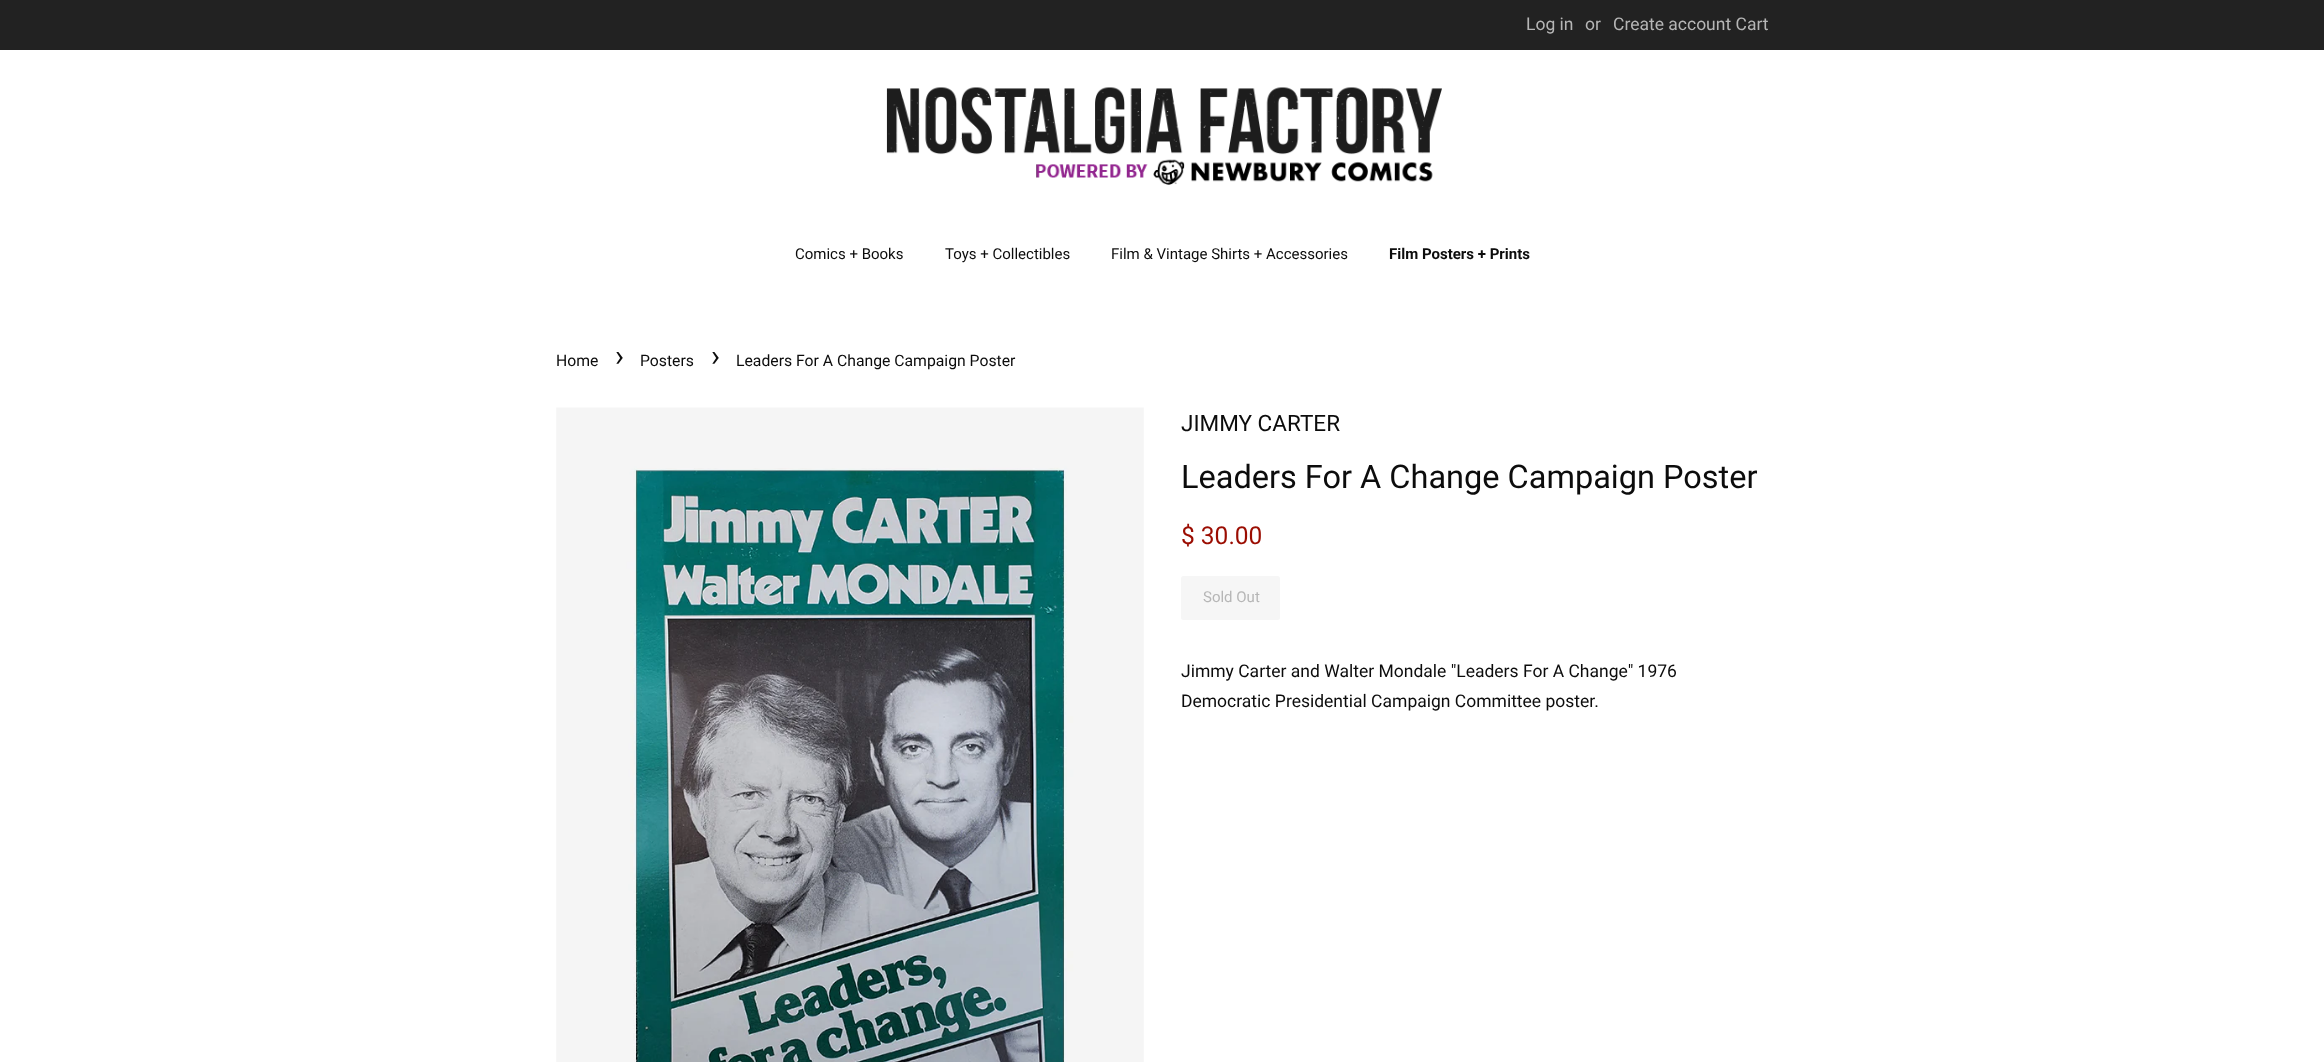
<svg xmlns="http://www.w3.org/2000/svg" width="2324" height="1062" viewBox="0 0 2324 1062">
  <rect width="100%" height="100%" fill="rgb(255,255,255)"/>
  <rect x="0" y="0" width="2324" height="50" fill="rgb(34,34,34)"/>
  <g font-family="Roboto" font-size="17.5" fill="rgb(182,182,182)">
    <text x="1526" y="30">Log in</text>
    <text x="1585" y="30">or</text>
    <text x="1613" y="30">Create account Cart</text>
  </g>
  <image x="886" y="87" width="556" height="98" href="pic1.png"/>
  <g font-family="Roboto" font-size="15" fill="rgb(12,12,12)">
    <text x="795" y="259">Comics + Books</text>
    <text x="945" y="259">Toys + Collectibles</text>
    <text x="1111" y="259">Film &amp; Vintage Shirts + Accessories</text>
  </g>
  <text x="1389" y="259" font-family="Roboto" font-size="15" font-weight="bold" fill="rgb(12,12,12)">Film Posters + Prints</text>
  <text x="556" y="366" font-family="Roboto" font-size="15.75" fill="rgb(12,12,12)">Home</text>
  <text x="615" y="366" font-family="Roboto" font-size="30" fill="rgb(12,12,12)">›</text>
  <text x="640" y="366" font-family="Roboto" font-size="15.75" fill="rgb(12,12,12)">Posters</text>
  <text x="711" y="366" font-family="Roboto" font-size="30" fill="rgb(12,12,12)">›</text>
  <text x="736" y="366" font-family="Roboto" font-size="15.75" fill="rgb(12,12,12)">Leaders For A Change Campaign Poster</text>
  <image x="556" y="407" width="588" height="655" href="pic2.png"/>
  <text x="1181" y="431" font-family="Roboto" font-size="22.5" fill="rgb(12,12,12)">JIMMY CARTER</text>
  <text x="1181" y="488" font-family="Roboto" font-size="32.5" fill="rgb(12,12,12)">Leaders For A Change Campaign Poster</text>
  <text x="1181" y="544" font-family="Roboto" font-size="24.5" fill="rgb(155,13,2)">$ 30.00</text>
  <rect x="1181" y="576" width="99" height="44" rx="2.5" fill="rgb(246,246,246)"/>
  <text x="1203" y="602" font-family="Roboto" font-size="15" fill="rgb(182,182,182)">Sold Out</text>
  <g font-family="Roboto" font-size="17.5" fill="rgb(12,12,12)">
    <text>
      <tspan x="1181" y="677">Jimmy Carter and Walter Mondale "Leaders For A Change" 1976</tspan>
      <tspan x="1181" y="707">Democratic Presidential Campaign Committee poster.</tspan>
    </text>
  </g>
</svg>
